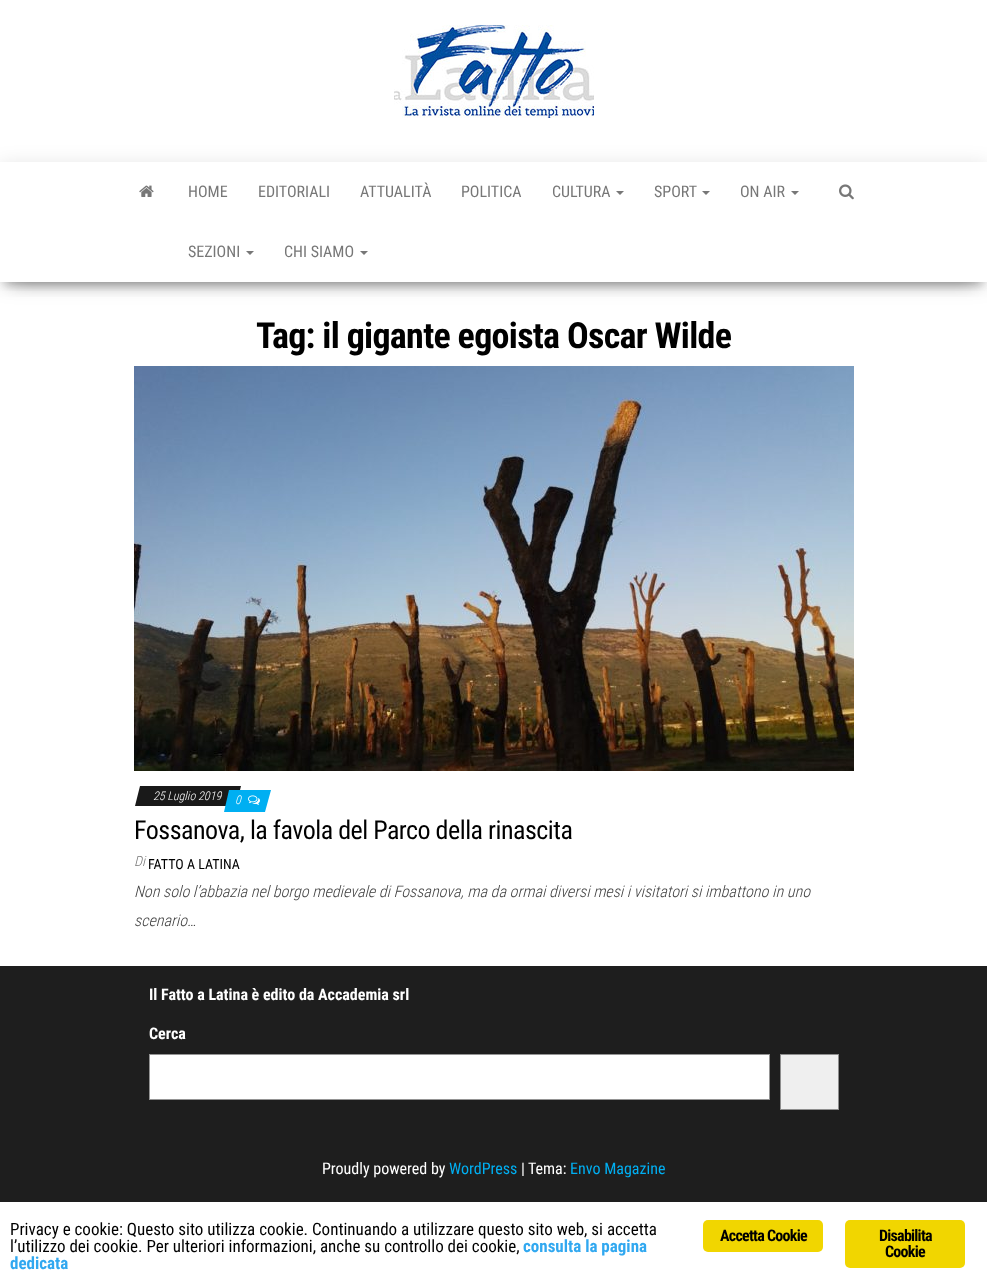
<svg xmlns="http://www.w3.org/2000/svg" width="987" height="1284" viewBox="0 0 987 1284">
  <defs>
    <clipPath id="clip1"><rect x="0" y="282" width="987" height="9"/></clipPath>
    <clipPath id="clip2"><path d="M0 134H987V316H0ZM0 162H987V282H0Z" clip-rule="evenodd"/></clipPath>
    <clipPath id="clip3"><rect x="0" y="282" width="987" height="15"/></clipPath>
  </defs>
  <rect width="100%" height="100%" fill="rgb(255,255,255)"/>
  <image x="394" y="25" width="200" height="93" href="pic1.png"/>
  <g clip-path="url(#clip1)">
    <rect x="5" y="175" width="977" height="110" fill="rgba(0,0,0,0.2)" filter="blur(5px)"/>
  </g>
  <g clip-path="url(#clip2)">
    <rect x="0" y="165" width="987" height="120" fill="rgba(0,0,0,0.12)" filter="blur(10px)"/>
  </g>
  <g clip-path="url(#clip3)">
    <rect x="12" y="184" width="963" height="96" fill="rgba(0,0,0,0.42)" filter="blur(10px)"/>
  </g>
  <image x="139" y="185" width="15" height="12" href="pic2.png"/>
  <g font-family="Roboto Condensed" font-size="16" fill="rgb(119,119,119)">
    <text x="188" y="197">HOME</text>
    <text x="258" y="197">EDITORIALI</text>
    <text x="360" y="197">ATTUALITÀ</text>
    <text x="461" y="197">POLITICA</text>
    <text x="552" y="197">CULTURA</text>
  </g>
  <path d="M616 191H624L620 195Z" fill="rgb(119,119,119)"/>
  <text x="654" y="197" font-family="Roboto Condensed" font-size="16" fill="rgb(119,119,119)">SPORT</text>
  <path d="M702 191H710L706 195Z" fill="rgb(119,119,119)"/>
  <text x="740" y="197" font-family="Roboto Condensed" font-size="16" fill="rgb(119,119,119)">ON AIR</text>
  <path d="M791 191H799L795 195Z" fill="rgb(119,119,119)"/>
  <text x="188" y="257" font-family="Roboto Condensed" font-size="16" fill="rgb(119,119,119)">SEZIONI</text>
  <path d="M246 251H254L250 255Z" fill="rgb(119,119,119)"/>
  <text x="284" y="257" font-family="Roboto Condensed" font-size="16" fill="rgb(119,119,119)">CHI SIAMO</text>
  <path d="M360 251H368L364 255Z" fill="rgb(119,119,119)"/>
  <image x="839" y="184" width="15" height="16" href="pic3.png"/>
  <text x="256" y="348" font-family="Roboto Condensed" font-size="36" font-weight="bold" letter-spacing="-0.7" fill="rgb(0,0,0)">Tag: il gigante egoista Oscar Wilde</text>
  <image x="134" y="366" width="720" height="405" href="pic4.png"/>
  <path d="M140 786H241L236 806H135Z" fill="rgb(25,25,25)"/>
  <text x="153" y="800" font-family="Roboto Condensed" font-size="12" font-weight="300" font-style="italic" fill="rgb(255,255,255)">25 Luglio 2019</text>
  <path d="M229 790H271L265 812H224Z" fill="rgb(0,175,242)"/>
  <text x="235" y="804" font-family="Roboto Condensed" font-size="12" font-weight="300" font-style="italic" fill="rgb(255,255,255)">0</text>
  <image x="248" y="795" width="12" height="10" href="pic5.png"/>
  <text x="134" y="839" font-family="Roboto Condensed" font-size="26" letter-spacing="-0.5" fill="rgb(0,0,0)">Fossanova, la favola del Parco della rinascita</text>
  <text x="134" y="866" font-family="Roboto Condensed" font-size="14" font-weight="300" font-style="italic" fill="rgb(119,119,119)">Di</text>
  <text x="148" y="869" font-family="Roboto Condensed" font-size="14" fill="rgb(0,0,0)">FATTO A LATINA</text>
  <g font-family="Roboto Condensed" font-size="16" font-weight="300" font-style="italic" fill="rgb(64,64,64)">
    <text>
      <tspan x="134" y="897">Non solo l’abbazia nel borgo medievale di Fossanova, ma da ormai diversi mesi i visitatori si imbattono in uno</tspan>
      <tspan x="134" y="926">scenario…</tspan>
    </text>
  </g>
  <rect x="0" y="966" width="987" height="236" fill="rgb(30,30,30)"/>
  <g font-family="Roboto Condensed" font-size="16" font-weight="bold" fill="rgb(255,255,255)">
    <text x="149" y="1000">Il Fatto a Latina è edito da Accademia srl</text>
    <text x="149" y="1039">Cerca</text>
  </g>
  <rect x="149.5" y="1054.5" width="620" height="45" fill="rgb(255,255,255)" stroke="rgb(148,148,148)"/>
  <rect x="780.5" y="1054.5" width="58" height="55" fill="rgb(239,239,239)" stroke="rgb(142,142,142)"/>
  <text x="322" y="1174" font-family="Roboto Condensed" font-size="16" fill="rgb(255,255,255)">Proudly powered by</text>
  <text x="449" y="1174" font-family="Roboto Condensed" font-size="16" fill="rgb(0,175,242)">WordPress</text>
  <g font-family="Roboto Condensed" font-size="16" fill="rgb(255,255,255)">
    <text x="521" y="1174">|</text>
    <text x="528" y="1174">Tema:</text>
  </g>
  <text x="570" y="1174" font-family="Roboto Condensed" font-size="16" fill="rgb(0,175,242)">Envo Magazine</text>
  <g font-family="Roboto Condensed" font-size="17" fill="rgb(0,0,0)">
    <text>
      <tspan x="10" y="1235">Privacy e cookie: Questo sito utilizza cookie. Continuando a utilizzare questo sito web, si accetta</tspan>
      <tspan x="10" y="1252">l’utilizzo dei cookie. Per ulteriori informazioni, anche su controllo dei cookie,</tspan>
    </text>
  </g>
  <g font-family="Roboto Condensed" font-size="17" font-weight="bold" fill="rgb(49,168,240)">
    <text x="523" y="1252">consulta la pagina</text>
    <text x="10" y="1269">dedicata</text>
  </g>
  <rect x="703" y="1220" width="120" height="32" rx="5" fill="rgb(241,214,0)"/>
  <text x="720" y="1241" font-family="Roboto Condensed" font-size="16" font-weight="bold" letter-spacing="-0.75" fill="rgb(0,0,0)">Accetta Cookie</text>
  <rect x="845" y="1220" width="120" height="48" rx="5" fill="rgb(241,214,0)"/>
  <g font-family="Roboto Condensed" font-size="16" font-weight="bold" letter-spacing="-0.75" fill="rgb(0,0,0)">
    <text x="879" y="1241">Disabilita</text>
    <text x="885" y="1257">Cookie</text>
  </g>
</svg>
